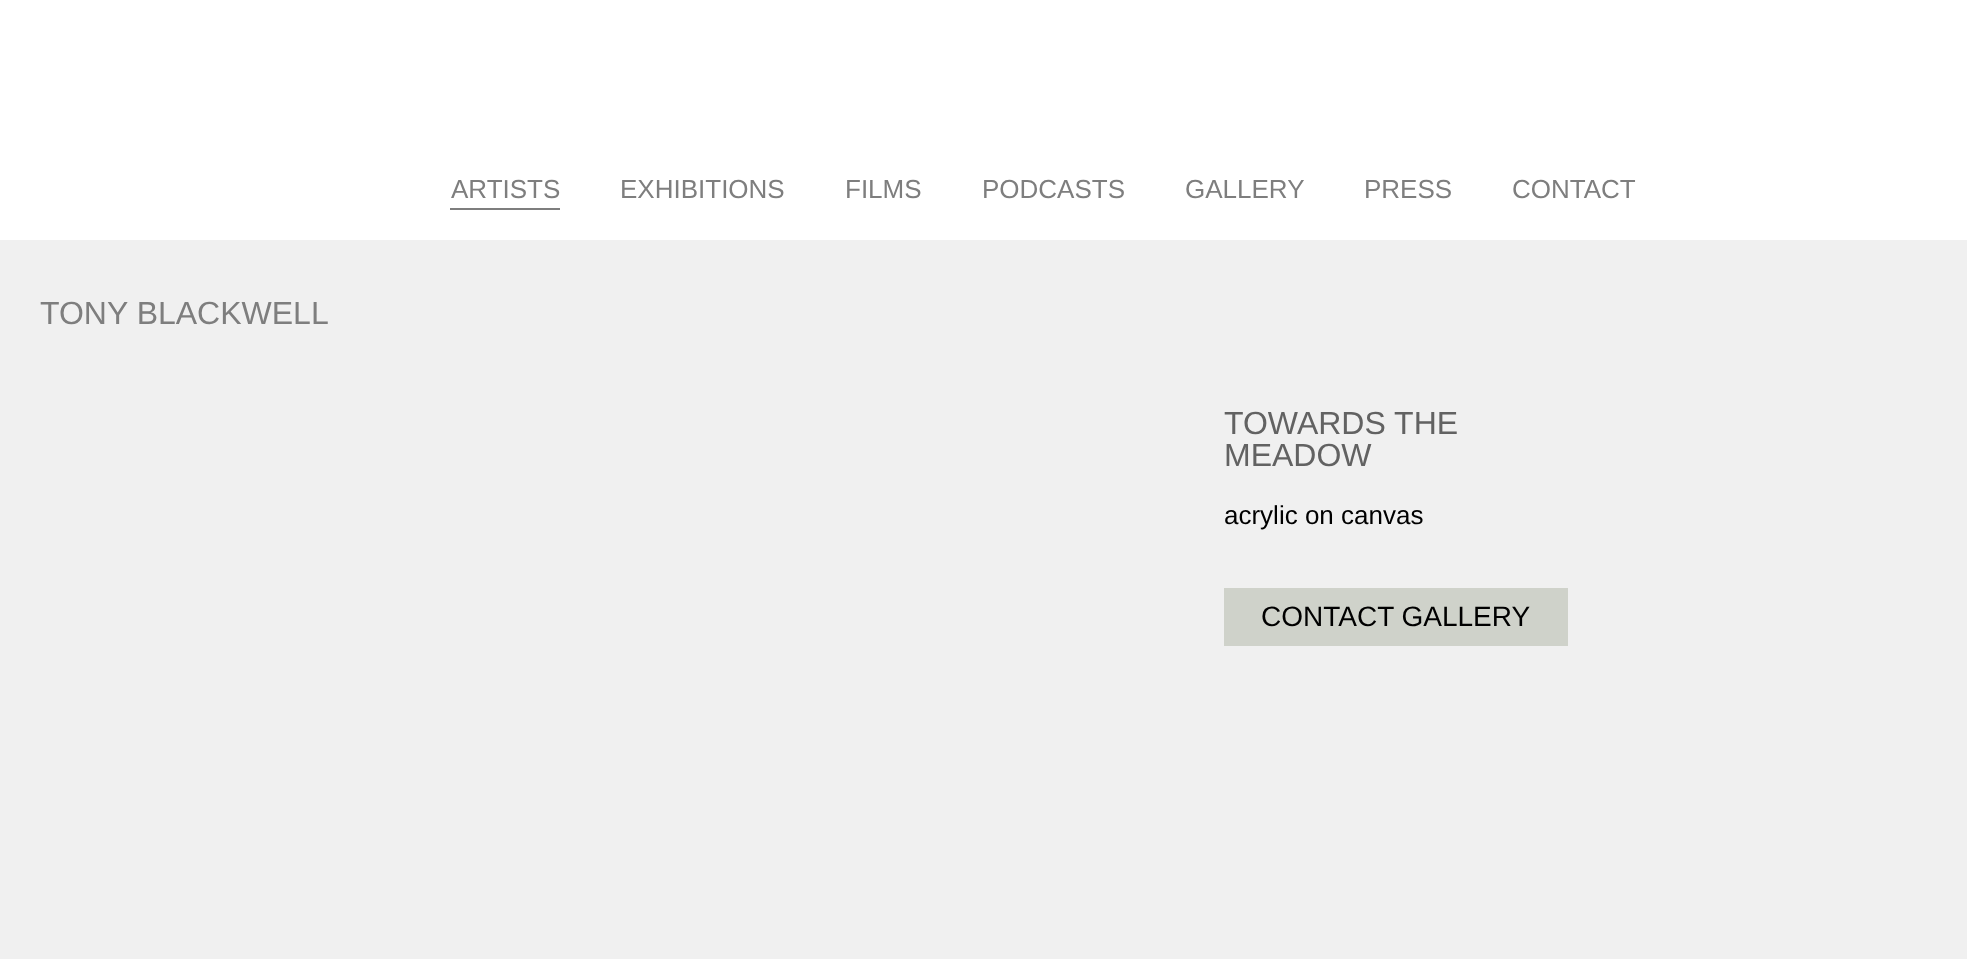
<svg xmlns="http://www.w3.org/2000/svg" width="1967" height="959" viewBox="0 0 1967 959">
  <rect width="100%" height="100%" fill="rgb(255,255,255)"/>
  <text x="451" y="198" font-family="Liberation Sans" font-size="26" fill="rgb(126,126,126)">ARTISTS</text>
  <rect x="450" y="208" width="110" height="2" fill="rgb(126,126,126)"/>
  <g font-family="Liberation Sans" font-size="26" fill="rgb(126,126,126)">
    <text x="620" y="198">EXHIBITIONS</text>
    <text x="845" y="198">FILMS</text>
    <text x="982" y="198">PODCASTS</text>
    <text x="1185" y="198">GALLERY</text>
    <text x="1364" y="198">PRESS</text>
    <text x="1512" y="198">CONTACT</text>
  </g>
  <rect x="0" y="240" width="1967" height="719" fill="rgb(240,240,240)"/>
  <text x="40" y="324" font-family="Liberation Sans" font-size="32" fill="rgb(126,126,126)">TONY BLACKWELL</text>
  <g font-family="Liberation Sans" font-size="32" fill="rgb(98,98,98)">
    <text>
      <tspan x="1224" y="434">TOWARDS THE</tspan>
      <tspan x="1224" y="466">MEADOW</tspan>
    </text>
  </g>
  <text x="1224" y="524" font-family="Liberation Sans" font-size="26" fill="rgb(0,0,0)">acrylic on canvas</text>
  <rect x="1224" y="588" width="344" height="58" fill="rgb(207,210,202)"/>
  <text x="1261" y="626" font-family="Liberation Sans" font-size="28" fill="rgb(0,0,0)">CONTACT GALLERY</text>
</svg>
